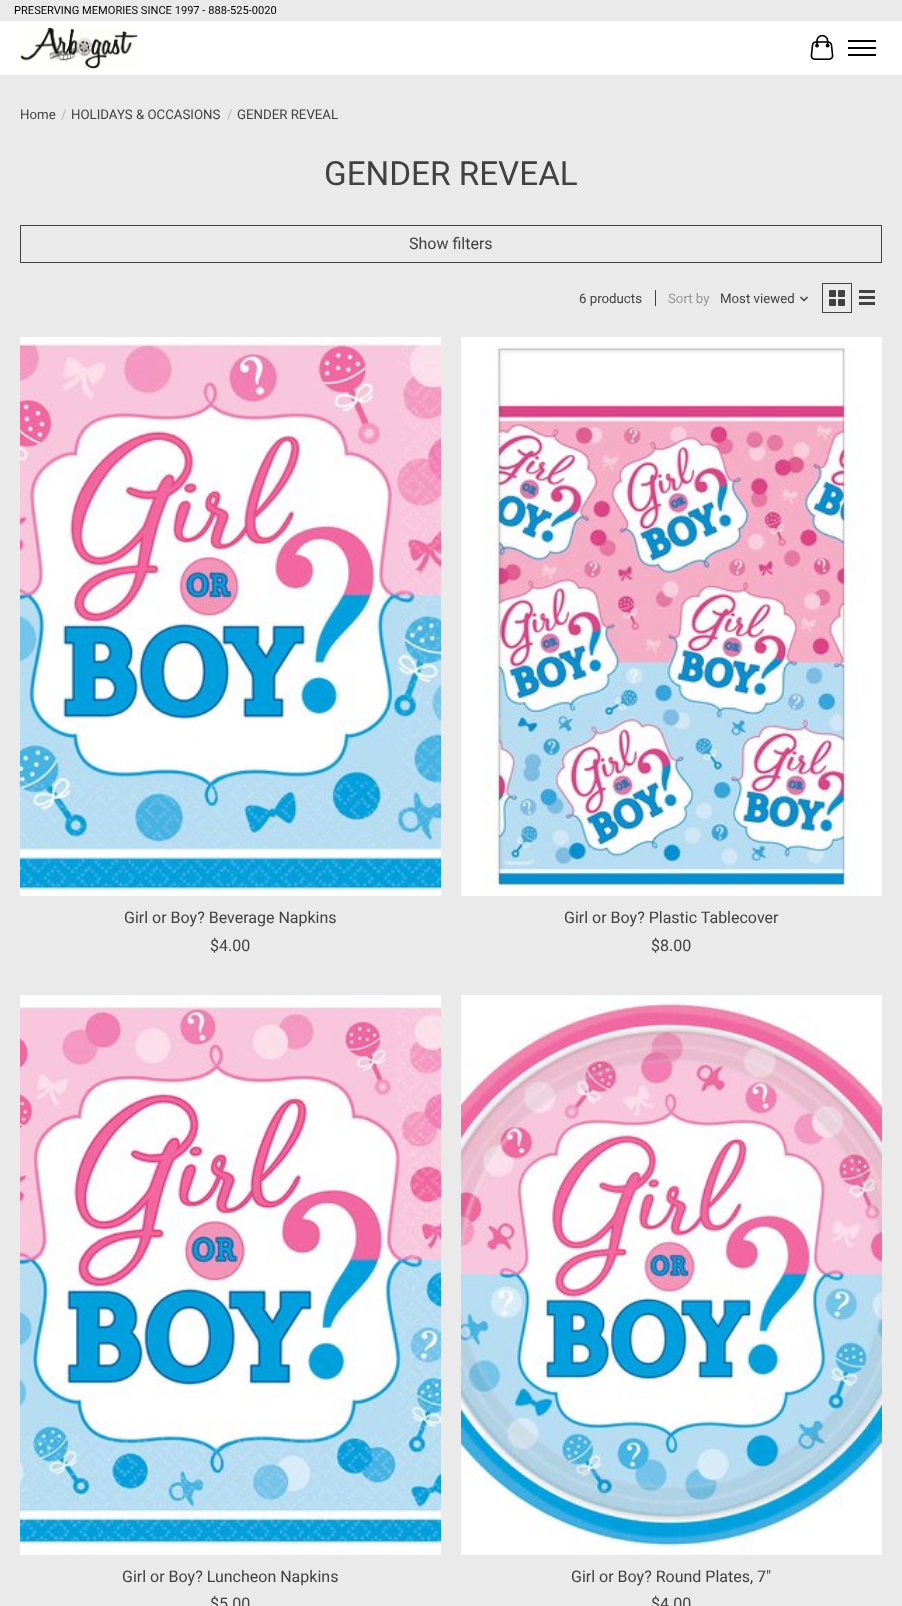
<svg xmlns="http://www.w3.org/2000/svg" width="902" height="1606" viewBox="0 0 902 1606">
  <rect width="100%" height="100%" fill="rgb(234,234,234)"/>
  <rect x="0" y="21" width="902" height="54" fill="rgb(255,255,255)"/>
  <text x="14" y="14" font-family="Roboto" font-size="11.1" fill="rgb(0,0,0)">PRESERVING MEMORIES SINCE 1997 - 888-525-0020</text>
  <image x="20" y="27" width="118" height="42" href="pic1.png"/>
  <image x="810" y="35" width="24" height="25" href="pic2.png"/>
  <rect x="848" y="47" width="28" height="2" fill="rgb(0,0,0)"/>
  <rect x="848" y="40" width="28" height="2" fill="rgb(0,0,0)"/>
  <rect x="848" y="54" width="28" height="2" fill="rgb(0,0,0)"/>
  <text x="20" y="119" font-family="Roboto" font-size="13.25" fill="rgb(65,65,65)">Home</text>
  <text x="61" y="119" font-family="Roboto" font-size="13.25" fill="rgb(183,183,183)">/</text>
  <text x="71" y="119" font-family="Roboto" font-size="13.25" fill="rgb(65,65,65)">HOLIDAYS &amp; OCCASIONS</text>
  <text x="227" y="119" font-family="Roboto" font-size="13.25" fill="rgb(183,183,183)">/</text>
  <text x="237" y="119" font-family="Roboto" font-size="13.25" fill="rgb(65,65,65)">GENDER REVEAL</text>
  <text x="324" y="185" font-family="Roboto" font-size="33.25" fill="rgb(65,65,65)">GENDER REVEAL</text>
  <rect x="20.5" y="225.5" width="861" height="37" fill="none" stroke="rgb(65,65,65)"/>
  <text x="409" y="249" font-family="Roboto" font-size="16" fill="rgb(65,65,65)">Show filters</text>
  <text x="579" y="303" font-family="Roboto" font-size="13.25" fill="rgb(65,65,65)">6 products</text>
  <rect x="655" y="290" width="1" height="16" fill="rgb(65,65,65)"/>
  <text x="668" y="303" font-family="Roboto" font-size="13.25" fill="rgb(150,150,150)">Sort by</text>
  <text x="720" y="303" font-family="Roboto" font-size="13.25" fill="rgb(65,65,65)">Most viewed</text>
  <image x="800" y="296" width="8" height="6" href="pic3.png"/>
  <rect x="822.5" y="283.5" width="29" height="29" fill="none" stroke="rgb(65,65,65)"/>
  <image x="829" y="290" width="16" height="16" href="pic4.png"/>
  <rect x="859" y="290" width="16" height="3" fill="rgb(65,65,65)"/>
  <rect x="859" y="296" width="16" height="3" fill="rgb(65,65,65)"/>
  <rect x="859" y="302" width="16" height="3" fill="rgb(65,65,65)"/>
  <image x="20" y="337" width="421" height="559" href="pic5.png"/>
  <g font-family="Roboto" font-size="16" fill="rgb(65,65,65)">
    <text x="124" y="923">Girl or Boy? Beverage Napkins</text>
    <text x="210" y="951">$4.00</text>
  </g>
  <image x="461" y="337" width="421" height="559" href="pic6.png"/>
  <g font-family="Roboto" font-size="16" fill="rgb(65,65,65)">
    <text x="564" y="923">Girl or Boy? Plastic Tablecover</text>
    <text x="651" y="951">$8.00</text>
  </g>
  <image x="20" y="995" width="421" height="560" href="pic7.png"/>
  <g font-family="Roboto" font-size="16" fill="rgb(65,65,65)">
    <text x="122" y="1582">Girl or Boy? Luncheon Napkins</text>
    <text x="210" y="1609">$5.00</text>
  </g>
  <image x="461" y="995" width="421" height="560" href="pic8.png"/>
  <g font-family="Roboto" font-size="16" fill="rgb(65,65,65)">
    <text x="571" y="1582">Girl or Boy? Round Plates, 7"</text>
    <text x="651" y="1609">$4.00</text>
  </g>
</svg>
